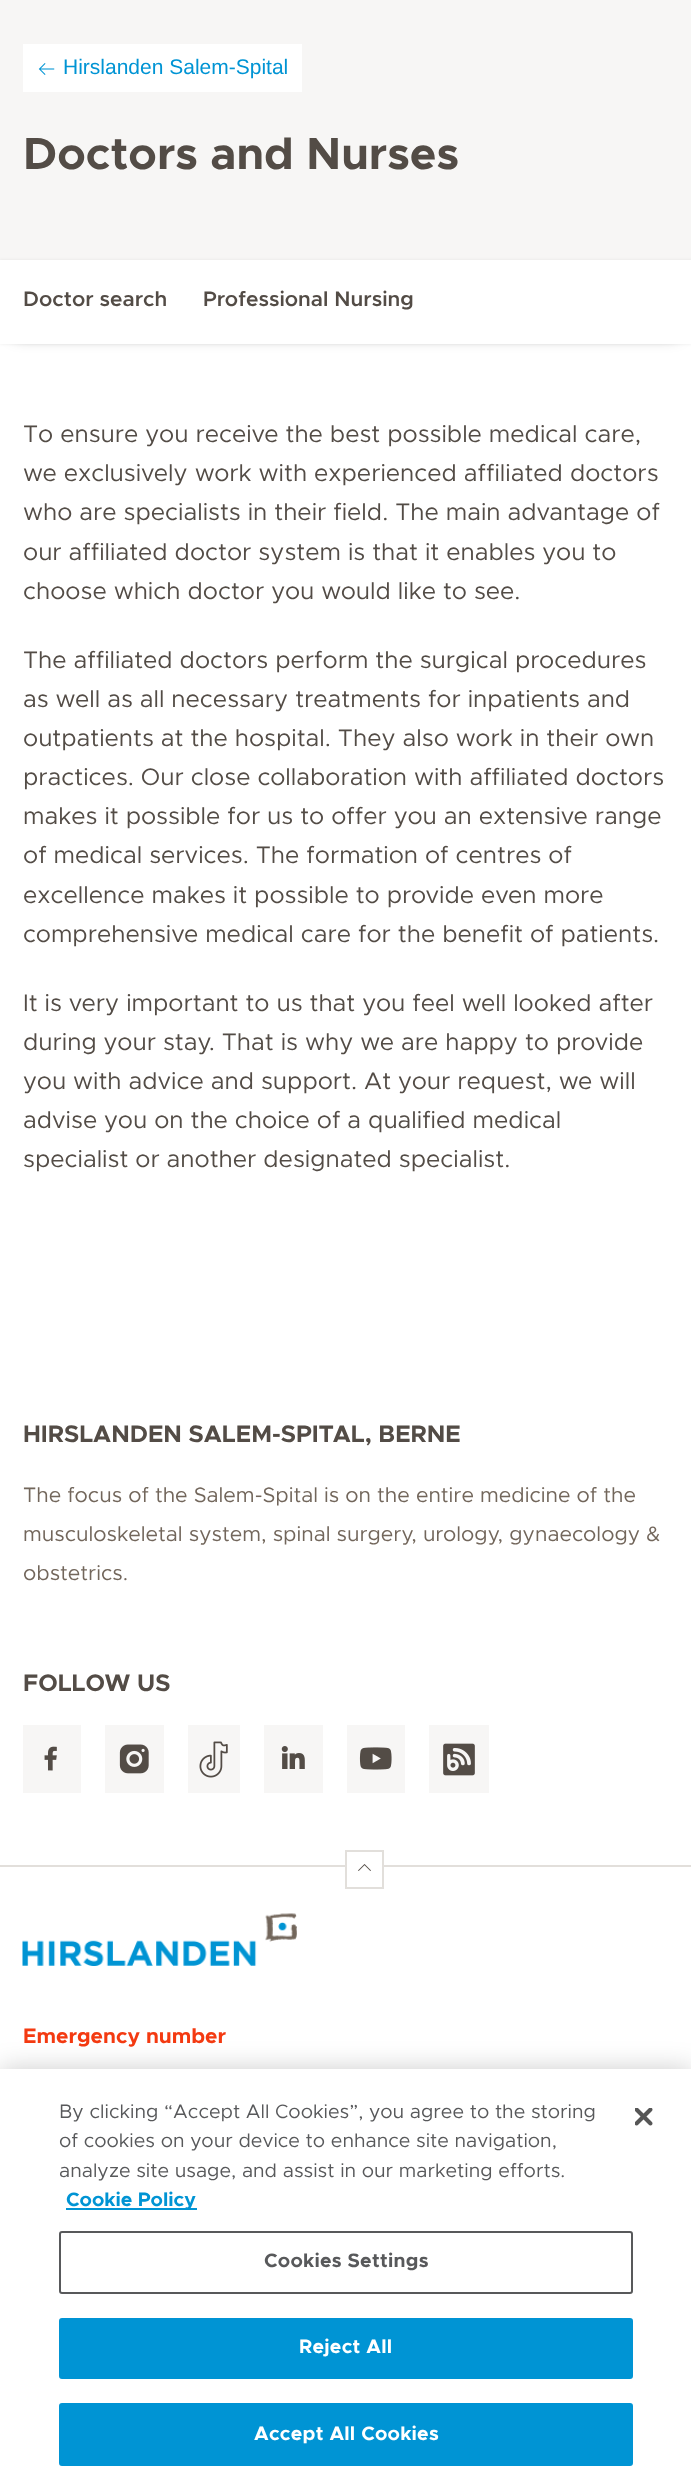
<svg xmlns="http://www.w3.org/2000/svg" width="691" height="2489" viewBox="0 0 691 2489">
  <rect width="100%" height="100%" fill="rgb(255,255,255)"/>
  <rect x="0" y="0" width="691" height="260" fill="rgb(247,246,245)"/>
  <rect x="23" y="44" width="279" height="48" fill="rgb(255,255,255)"/>
  <image x="38" y="63" width="17" height="12" href="pic1.png"/>
  <text x="63" y="74" font-family="Liberation Sans" font-size="21" fill="rgb(0,148,212)">Hirslanden Salem-Spital</text>
  <text x="23" y="169" font-family="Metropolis" font-size="45" font-weight="bold" fill="rgb(83,76,70)">Doctors and Nurses</text>
  <rect x="15" y="282" width="662" height="54" fill="rgba(0,0,0,0.4)" filter="blur(7.5px)"/>
  <rect x="0" y="260" width="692" height="84" fill="rgba(0,0,0,0.08)" filter="blur(1.5px)"/>
  <rect x="0" y="260" width="691" height="84" fill="rgb(255,255,255)"/>
  <g font-family="Metropolis" font-size="21" font-weight="600" fill="rgb(83,76,70)">
    <text x="23" y="306">Doctor search</text>
    <text x="203" y="306">Professional Nursing</text>
  </g>
  <g font-family="Metropolis" font-size="24" fill="rgb(83,76,70)">
    <text>
      <tspan x="23" y="442">To ensure you receive the best possible medical care,</tspan>
      <tspan x="23" y="481">we exclusively work with experienced affiliated doctors</tspan>
      <tspan x="23" y="520">who are specialists in their field. The main advantage of</tspan>
      <tspan x="23" y="560">our affiliated doctor system is that it enables you to</tspan>
      <tspan x="23" y="599">choose which doctor you would like to see.</tspan>
    </text>
    <text>
      <tspan x="23" y="668">The affiliated doctors perform the surgical procedures</tspan>
      <tspan x="23" y="707">as well as all necessary treatments for inpatients and</tspan>
      <tspan x="23" y="746">outpatients at the hospital. They also work in their own</tspan>
      <tspan x="23" y="785">practices. Our close collaboration with affiliated doctors</tspan>
      <tspan x="23" y="824">makes it possible for us to offer you an extensive range</tspan>
      <tspan x="23" y="863">of medical services. The formation of centres of</tspan>
      <tspan x="23" y="903">excellence makes it possible to provide even more</tspan>
      <tspan x="23" y="942">comprehensive medical care for the benefit of patients.</tspan>
    </text>
    <text>
      <tspan x="23" y="1011">It is very important to us that you feel well looked after</tspan>
      <tspan x="23" y="1050">during your stay. That is why we are happy to provide</tspan>
      <tspan x="23" y="1089">you with advice and support. At your request, we will</tspan>
      <tspan x="23" y="1128">advise you on the choice of a qualified medical</tspan>
      <tspan x="23" y="1167">specialist or another designated specialist.</tspan>
    </text>
  </g>
  <text x="23" y="1442" font-family="Metropolis" font-size="24" font-weight="bold" fill="rgb(83,76,70)">HIRSLANDEN SALEM-SPITAL, BERNE</text>
  <g font-family="Metropolis" font-size="21" fill="rgb(114,102,91)">
    <text>
      <tspan x="23" y="1502">The focus of the Salem-Spital is on the entire medicine of the</tspan>
      <tspan x="23" y="1541">musculoskeletal system, spinal surgery, urology, gynaecology &amp;</tspan>
      <tspan x="23" y="1580">obstetrics.</tspan>
    </text>
  </g>
  <text x="23" y="1691" font-family="Metropolis" font-size="24" font-weight="bold" fill="rgb(83,76,70)">FOLLOW US</text>
  <rect x="23" y="1725" width="58" height="68" fill="rgb(247,246,245)"/>
  <image x="44" y="1746" width="13" height="25" href="pic2.png"/>
  <rect x="105" y="1725" width="59" height="68" fill="rgb(247,246,245)"/>
  <image x="119" y="1744" width="30" height="30" href="pic3.png"/>
  <rect x="188" y="1725" width="52" height="68" fill="rgb(247,246,245)"/>
  <image x="199" y="1741" width="29" height="37" href="pic4.png"/>
  <rect x="264" y="1725" width="59" height="68" fill="rgb(247,246,245)"/>
  <image x="281" y="1746" width="24" height="23" href="pic5.png"/>
  <rect x="347" y="1725" width="58" height="68" fill="rgb(247,246,245)"/>
  <image x="359" y="1747" width="33" height="23" href="pic6.png"/>
  <rect x="429" y="1725" width="60" height="68" fill="rgb(247,246,245)"/>
  <image x="443" y="1743" width="32" height="33" href="pic7.png"/>
  <rect x="0" y="1865" width="691" height="2" fill="rgb(226,223,219)"/>
  <rect x="347" y="1865" width="35" height="2" fill="rgb(255,255,255)"/>
  <image x="358" y="1864" width="13" height="7" href="pic8.png"/>
  <rect x="346" y="1851" width="37" height="37" fill="none" stroke="rgb(226,223,219)" stroke-width="2"/>
  <image x="22" y="1913" width="275" height="53" href="pic9.png"/>
  <text x="23" y="2043" font-family="Metropolis" font-size="21" font-weight="bold" fill="rgb(244,58,17)">Emergency number</text>
  <rect x="0" y="2069" width="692" height="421" fill="rgba(0,0,0,0.2)" filter="blur(13.5px)"/>
  <rect x="0" y="2069" width="691" height="420" fill="rgb(255,255,255)"/>
  <g font-family="Metropolis" font-size="19.5" fill="rgb(88,89,91)">
    <text>
      <tspan x="59" y="2118">By clicking “Accept All Cookies”, you agree to the storing</tspan>
      <tspan x="59" y="2147">of cookies on your device to enhance site navigation,</tspan>
      <tspan x="59" y="2177">analyze site usage, and assist in our marketing efforts.</tspan>
    </text>
  </g>
  <rect x="66" y="2208" width="131" height="2" fill="rgb(0,148,212)"/>
  <text x="66" y="2206" font-family="Metropolis" font-size="19.5" font-weight="bold" fill="rgb(0,148,212)">Cookie Policy</text>
  <rect x="60" y="2232" width="572" height="61" rx="2" fill="none" stroke="rgb(88,89,91)" stroke-width="2"/>
  <text x="264" y="2267" font-family="Metropolis" font-size="19.5" font-weight="bold" letter-spacing="0.25" fill="rgb(88,89,91)">Cookies Settings</text>
  <rect x="60" y="2319" width="572" height="59" rx="2" fill="rgb(0,148,212)" stroke="rgb(0,148,212)" stroke-width="2"/>
  <text x="299" y="2353" font-family="Metropolis" font-size="19.5" font-weight="bold" letter-spacing="0.25" fill="rgb(255,255,255)">Reject All</text>
  <rect x="60" y="2404" width="572" height="61" rx="2" fill="rgb(0,148,212)" stroke="rgb(0,148,212)" stroke-width="2"/>
  <text x="254" y="2440" font-family="Metropolis" font-size="19.5" font-weight="bold" letter-spacing="0.25" fill="rgb(255,255,255)">Accept All Cookies</text>
  <image x="635" y="2108" width="18" height="18" href="pic10.png"/>
</svg>
